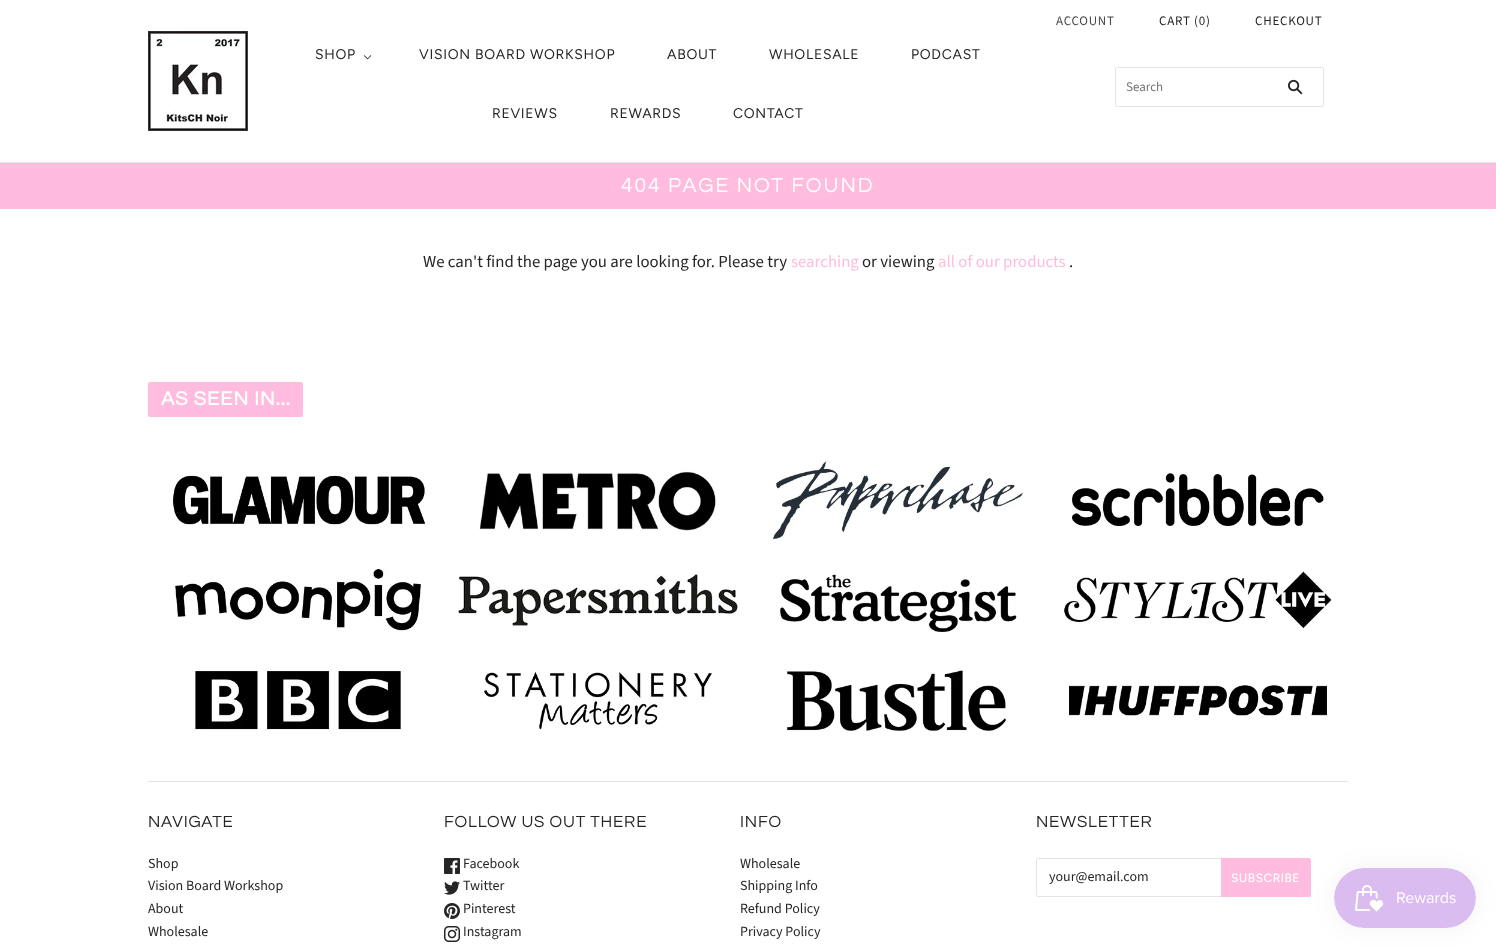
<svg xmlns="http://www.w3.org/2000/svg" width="1496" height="948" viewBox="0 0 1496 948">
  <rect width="100%" height="100%" fill="rgb(255,255,255)"/>
  <rect x="0" y="162" width="1496" height="1" fill="rgb(228,228,228)"/>
  <text x="1056" y="25" font-family="Source Sans Pro" font-size="13" letter-spacing="0.75" fill="rgb(73,73,73)">ACCOUNT</text>
  <g font-family="Source Sans Pro" font-size="13" letter-spacing="0.75" fill="rgb(38,38,38)">
    <text x="1159" y="25">CART (0)</text>
    <text x="1255" y="25">CHECKOUT</text>
  </g>
  <image x="148" y="31" width="100" height="100" href="pic1.png"/>
  <text x="315" y="59" font-family="Figtree" font-size="14" letter-spacing="0.7" fill="rgb(38,38,38)">SHOP</text>
  <image x="364" y="55" width="8" height="5" href="pic2.png"/>
  <g font-family="Figtree" font-size="14" letter-spacing="0.7" fill="rgb(38,38,38)">
    <text x="419" y="59">VISION BOARD WORKSHOP</text>
    <text x="667" y="59">ABOUT</text>
    <text x="769" y="59">WHOLESALE</text>
    <text x="911" y="59">PODCAST</text>
    <text x="492" y="118">REVIEWS</text>
    <text x="610" y="118">REWARDS</text>
    <text x="733" y="118">CONTACT</text>
  </g>
  <rect x="1115.5" y="67.5" width="208" height="39" rx="1.5" fill="none" stroke="rgb(228,228,228)"/>
  <text x="1126" y="91" font-family="Source Sans Pro" font-size="13" fill="rgb(117,117,117)">Search</text>
  <image x="1287" y="79" width="16" height="16" href="pic3.png"/>
  <rect x="0" y="163" width="1496" height="46" fill="rgb(255,188,222)"/>
  <text x="621" y="192" font-family="Questrial" font-size="21" letter-spacing="2" fill="rgb(255,255,255)">404 PAGE NOT FOUND</text>
  <text x="423" y="267" font-family="Source Sans Pro" font-size="16.8" fill="rgb(38,38,38)">We can't find the page you are looking for. Please try</text>
  <text x="791" y="267" font-family="Source Sans Pro" font-size="16.8" fill="rgb(255,188,222)">searching</text>
  <text x="862" y="267" font-family="Source Sans Pro" font-size="16.8" fill="rgb(38,38,38)">or viewing</text>
  <text x="938" y="267" font-family="Source Sans Pro" font-size="16.8" fill="rgb(255,188,222)">all of our products</text>
  <text x="1069" y="267" font-family="Source Sans Pro" font-size="16.8" fill="rgb(38,38,38)">.</text>
  <rect x="148" y="781" width="1200" height="1" fill="rgb(228,228,228)"/>
  <rect x="148" y="382" width="155" height="35" rx="2" fill="rgb(255,188,222)"/>
  <text x="161" y="405" font-family="Questrial" font-size="20" font-weight="bold" letter-spacing="1" fill="rgb(255,255,255)">AS SEEN IN...</text>
  <image x="173" y="475" width="253" height="50" href="pic4.png"/>
  <image x="479" y="470" width="237" height="61" href="pic5.png"/>
  <image x="772" y="461" width="251" height="78" href="pic6.png"/>
  <image x="1072" y="473" width="252" height="54" href="pic7.png"/>
  <image x="175" y="569" width="247" height="62" href="pic8.png"/>
  <image x="458" y="574" width="280" height="53" href="pic9.png"/>
  <image x="779" y="574" width="238" height="58" href="pic10.png"/>
  <image x="1064" y="571" width="268" height="58" href="pic11.png"/>
  <image x="195" y="671" width="206" height="59" href="pic12.png"/>
  <image x="484" y="672" width="228" height="58" href="pic13.png"/>
  <image x="787" y="670" width="219" height="62" href="pic14.png"/>
  <image x="1069" y="685" width="258" height="31" href="pic15.png"/>
  <text x="148" y="827" font-family="Questrial" font-size="16.8" letter-spacing="0.8" fill="rgb(38,38,38)">NAVIGATE</text>
  <g font-family="Source Sans Pro" font-size="14" fill="rgb(38,38,38)">
    <text>
      <tspan x="148" y="868">Shop</tspan>
      <tspan x="148" y="890">Vision Board Workshop</tspan>
      <tspan x="148" y="913">About</tspan>
      <tspan x="148" y="936">Wholesale</tspan>
    </text>
  </g>
  <text x="444" y="827" font-family="Questrial" font-size="16.8" letter-spacing="0.8" fill="rgb(38,38,38)">FOLLOW US OUT THERE</text>
  <image x="444" y="858" width="16" height="16" href="pic16.png"/>
  <text x="463" y="868" font-family="Source Sans Pro" font-size="14" fill="rgb(38,38,38)">Facebook</text>
  <image x="444" y="881" width="16" height="14" href="pic17.png"/>
  <text x="463" y="890" font-family="Source Sans Pro" font-size="14" fill="rgb(38,38,38)">Twitter</text>
  <image x="444" y="903" width="16" height="16" href="pic18.png"/>
  <text x="463" y="913" font-family="Source Sans Pro" font-size="14" fill="rgb(38,38,38)">Pinterest</text>
  <image x="444" y="926" width="16" height="16" href="pic19.png"/>
  <text x="463" y="936" font-family="Source Sans Pro" font-size="14" fill="rgb(38,38,38)">Instagram</text>
  <text x="740" y="827" font-family="Questrial" font-size="16.8" letter-spacing="0.8" fill="rgb(38,38,38)">INFO</text>
  <g font-family="Source Sans Pro" font-size="14" fill="rgb(38,38,38)">
    <text>
      <tspan x="740" y="868">Wholesale</tspan>
      <tspan x="740" y="890">Shipping Info</tspan>
      <tspan x="740" y="913">Refund Policy</tspan>
      <tspan x="740" y="936">Privacy Policy</tspan>
    </text>
  </g>
  <text x="1036" y="827" font-family="Questrial" font-size="16.8" letter-spacing="0.8" fill="rgb(38,38,38)">NEWSLETTER</text>
  <rect x="1036.5" y="858.5" width="274" height="38" rx="1.5" fill="none" stroke="rgb(228,228,228)"/>
  <text x="1049" y="881" font-family="Source Sans Pro" font-size="14" fill="rgb(38,38,38)">your@email.com</text>
  <path d="M1221 858H1309C1310 858 1311 859 1311 860V895C1311 896 1310 897 1309 897H1221Z" fill="rgb(255,188,222)"/>
  <text x="1231" y="882" font-family="Figtree" font-size="12" font-weight="500" letter-spacing="0.5" fill="rgb(255,255,255)">SUBSCRIBE</text>
  <rect x="1334" y="868" width="142" height="60" rx="30" fill="rgba(0,0,0,0.05)" filter="blur(12.5px)"/>
  <image x="1334" y="868" width="142" height="60" href="pic20.png"/>
</svg>
